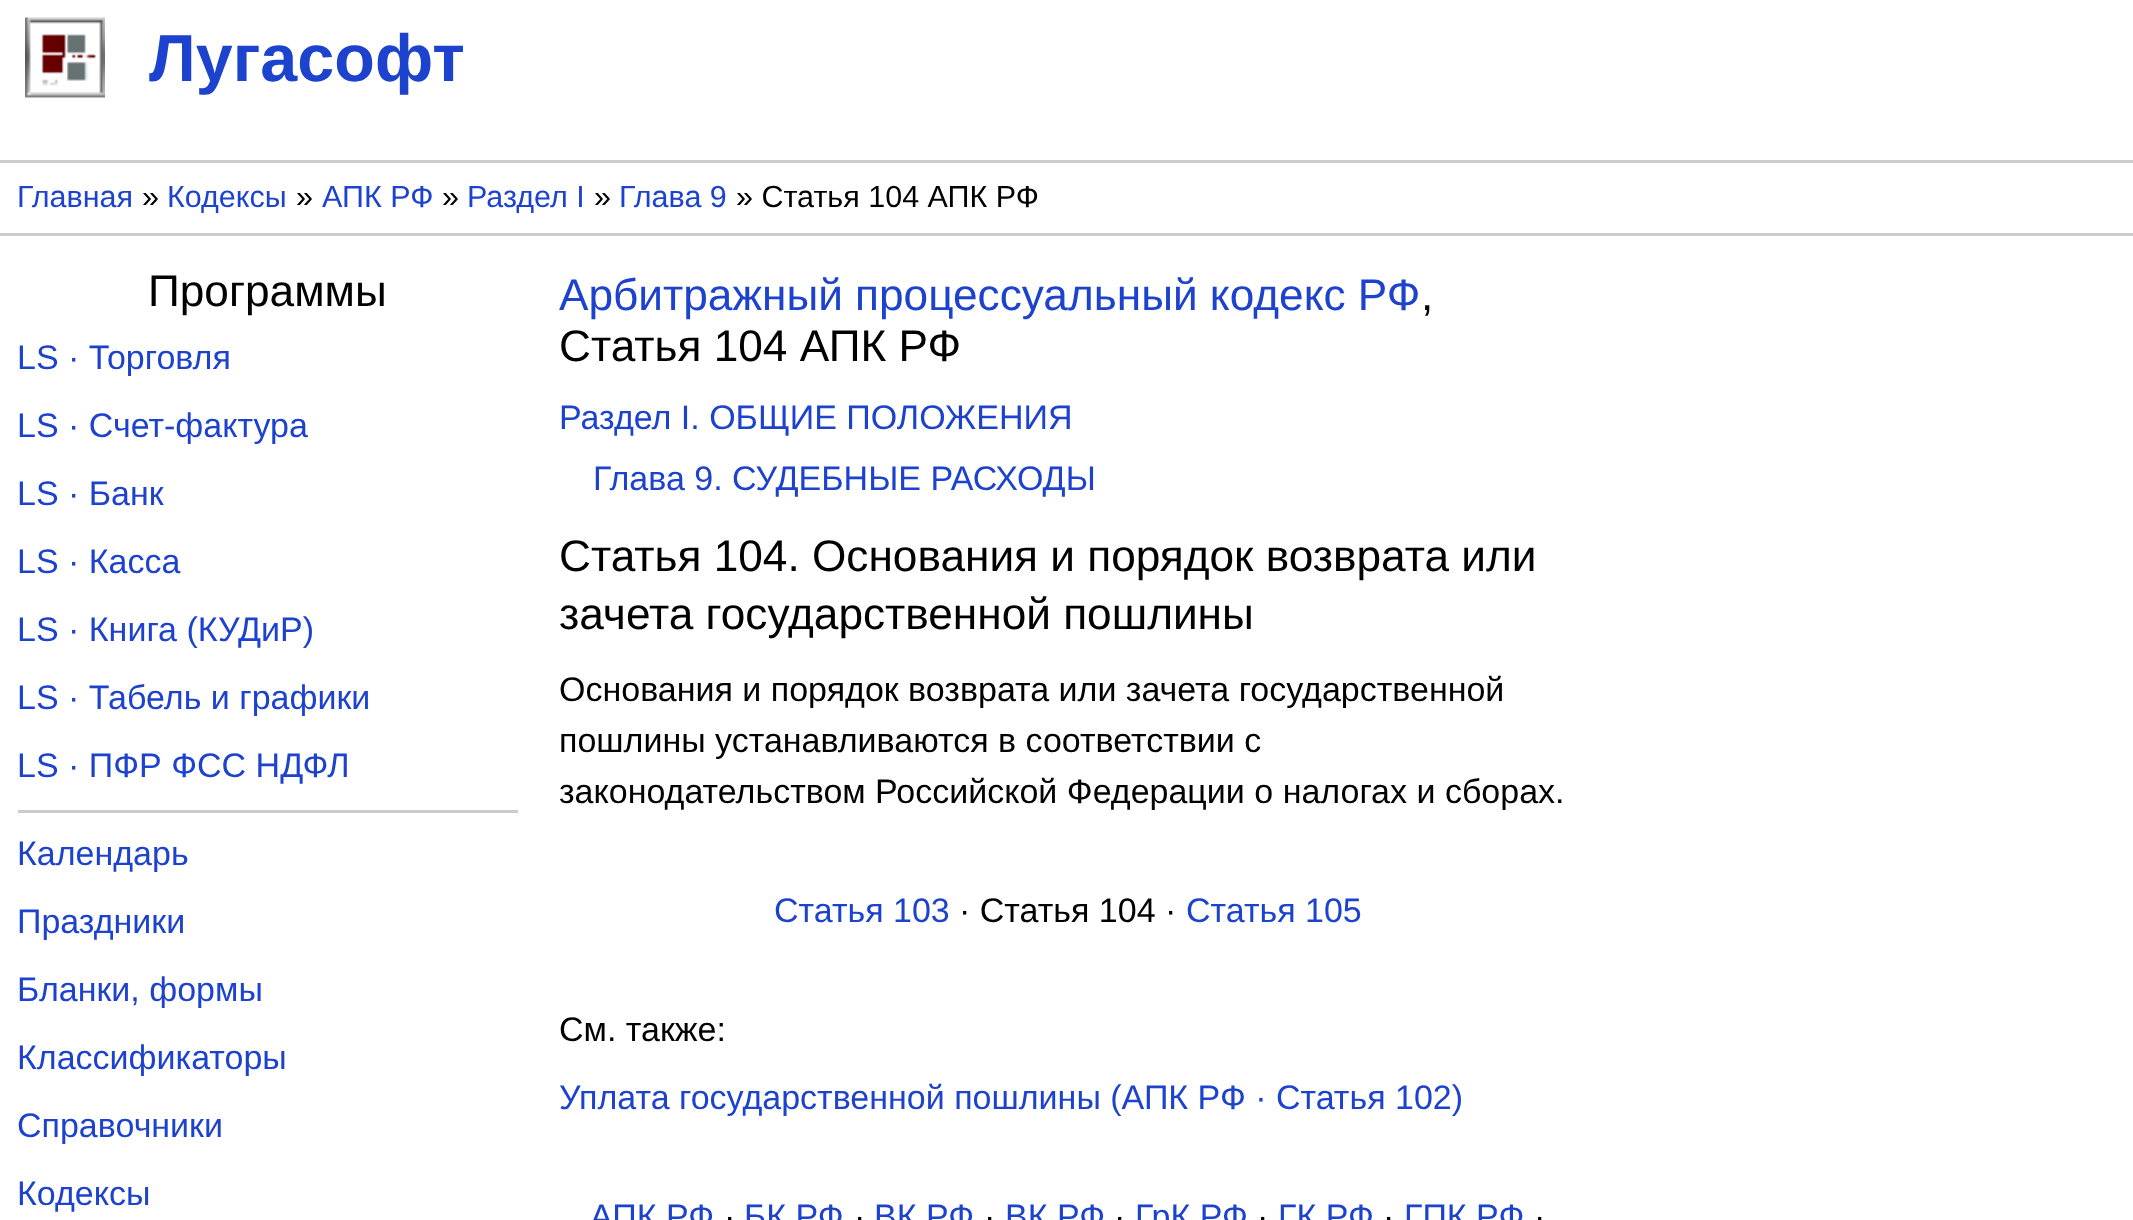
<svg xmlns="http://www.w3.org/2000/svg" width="2133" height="1220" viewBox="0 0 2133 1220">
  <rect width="100%" height="100%" fill="rgb(255,255,255)"/>
  <image x="25" y="17" width="80" height="81" href="pic1.png"/>
  <text x="149" y="81" font-family="Liberation Sans" font-size="66.5" font-weight="bold" fill="rgb(28,66,206)">Лугасофт</text>
  <rect x="0" y="160" width="2133" height="3" fill="rgb(204,204,204)"/>
  <rect x="0" y="233" width="2133" height="3" fill="rgb(204,204,204)"/>
  <text x="17" y="207" font-family="Liberation Sans" font-size="30.5" fill="rgb(28,66,206)">Главная</text>
  <text x="142" y="207" font-family="Liberation Sans" font-size="30.5" fill="rgb(0,0,0)">»</text>
  <text x="167" y="207" font-family="Liberation Sans" font-size="30.5" fill="rgb(28,66,206)">Кодексы</text>
  <text x="296" y="207" font-family="Liberation Sans" font-size="30.5" fill="rgb(0,0,0)">»</text>
  <text x="322" y="207" font-family="Liberation Sans" font-size="30.5" fill="rgb(28,66,206)">АПК РФ</text>
  <text x="442" y="207" font-family="Liberation Sans" font-size="30.5" fill="rgb(0,0,0)">»</text>
  <text x="467" y="207" font-family="Liberation Sans" font-size="30.5" fill="rgb(28,66,206)">Раздел I</text>
  <text x="594" y="207" font-family="Liberation Sans" font-size="30.5" fill="rgb(0,0,0)">»</text>
  <text x="619" y="207" font-family="Liberation Sans" font-size="30.5" fill="rgb(28,66,206)">Глава 9</text>
  <text x="736" y="207" font-family="Liberation Sans" font-size="30.5" fill="rgb(0,0,0)">» Статья 104 АПК РФ</text>
  <text x="148" y="306" font-family="Liberation Sans" font-size="44.2" fill="rgb(0,0,0)">Программы</text>
  <rect x="18" y="810" width="500" height="3" fill="rgb(204,204,204)"/>
  <g font-family="Liberation Sans" font-size="34" fill="rgb(28,66,206)">
    <text x="17" y="369">LS · Торговля</text>
    <text x="17" y="437">LS · Счет-фактура</text>
    <text x="17" y="505">LS · Банк</text>
    <text x="17" y="573">LS · Касса</text>
    <text x="17" y="641">LS · Книга (КУДиР)</text>
    <text x="17" y="709">LS · Табель и графики</text>
    <text x="17" y="777">LS · ПФР ФСС НДФЛ</text>
    <text x="17" y="865">Календарь</text>
    <text x="17" y="933">Праздники</text>
    <text x="17" y="1001">Бланки, формы</text>
    <text x="17" y="1069">Классификаторы</text>
    <text x="17" y="1137">Справочники</text>
    <text x="17" y="1205">Кодексы</text>
  </g>
  <text x="559" y="310" font-family="Liberation Sans" font-size="44.2" fill="rgb(28,66,206)">Арбитражный процессуальный кодекс РФ</text>
  <g font-family="Liberation Sans" font-size="44.2" fill="rgb(0,0,0)">
    <text x="1421" y="310">,</text>
    <text x="559" y="361">Статья 104 АПК РФ</text>
  </g>
  <g font-family="Liberation Sans" font-size="34" fill="rgb(28,66,206)">
    <text x="559" y="429">Раздел I. ОБЩИЕ ПОЛОЖЕНИЯ</text>
    <text x="593" y="490">Глава 9. СУДЕБНЫЕ РАСХОДЫ</text>
  </g>
  <g font-family="Liberation Sans" font-size="44.2" fill="rgb(0,0,0)">
    <text>
      <tspan x="559" y="571">Статья 104. Основания и порядок возврата или</tspan>
      <tspan x="559" y="629">зачета государственной пошлины</tspan>
    </text>
  </g>
  <g font-family="Liberation Sans" font-size="34" fill="rgb(0,0,0)">
    <text>
      <tspan x="559" y="701">Основания и порядок возврата или зачета государственной</tspan>
      <tspan x="559" y="752">пошлины устанавливаются в соответствии с</tspan>
      <tspan x="559" y="803">законодательством Российской Федерации о налогах и сборах.</tspan>
    </text>
  </g>
  <text x="774" y="922" font-family="Liberation Sans" font-size="34" fill="rgb(28,66,206)">Статья 103</text>
  <text x="959" y="922" font-family="Liberation Sans" font-size="34" fill="rgb(0,0,0)">· Статья 104 ·</text>
  <text x="1186" y="922" font-family="Liberation Sans" font-size="34" fill="rgb(28,66,206)">Статья 105</text>
  <text x="559" y="1041" font-family="Liberation Sans" font-size="34" fill="rgb(0,0,0)">См. также:</text>
  <g font-family="Liberation Sans" font-size="34" fill="rgb(28,66,206)">
    <text x="559" y="1109">Уплата государственной пошлины (АПК РФ · Статья 102)</text>
    <text x="590" y="1228">АПК РФ</text>
  </g>
  <text x="724" y="1228" font-family="Liberation Sans" font-size="34" fill="rgb(0,0,0)">·</text>
  <text x="744" y="1228" font-family="Liberation Sans" font-size="34" fill="rgb(28,66,206)">БК РФ</text>
  <text x="854" y="1228" font-family="Liberation Sans" font-size="34" fill="rgb(0,0,0)">·</text>
  <text x="874" y="1228" font-family="Liberation Sans" font-size="34" fill="rgb(28,66,206)">ВК РФ</text>
  <text x="984" y="1228" font-family="Liberation Sans" font-size="34" fill="rgb(0,0,0)">·</text>
  <text x="1005" y="1228" font-family="Liberation Sans" font-size="34" fill="rgb(28,66,206)">ВК РФ</text>
  <text x="1114" y="1228" font-family="Liberation Sans" font-size="34" fill="rgb(0,0,0)">·</text>
  <text x="1135" y="1228" font-family="Liberation Sans" font-size="34" fill="rgb(28,66,206)">ГрК РФ</text>
  <text x="1257" y="1228" font-family="Liberation Sans" font-size="34" fill="rgb(0,0,0)">·</text>
  <text x="1278" y="1228" font-family="Liberation Sans" font-size="34" fill="rgb(28,66,206)">ГК РФ</text>
  <text x="1383" y="1228" font-family="Liberation Sans" font-size="34" fill="rgb(0,0,0)">·</text>
  <text x="1404" y="1228" font-family="Liberation Sans" font-size="34" fill="rgb(28,66,206)">ГПК РФ</text>
  <text x="1534" y="1228" font-family="Liberation Sans" font-size="34" fill="rgb(0,0,0)">·</text>
</svg>
